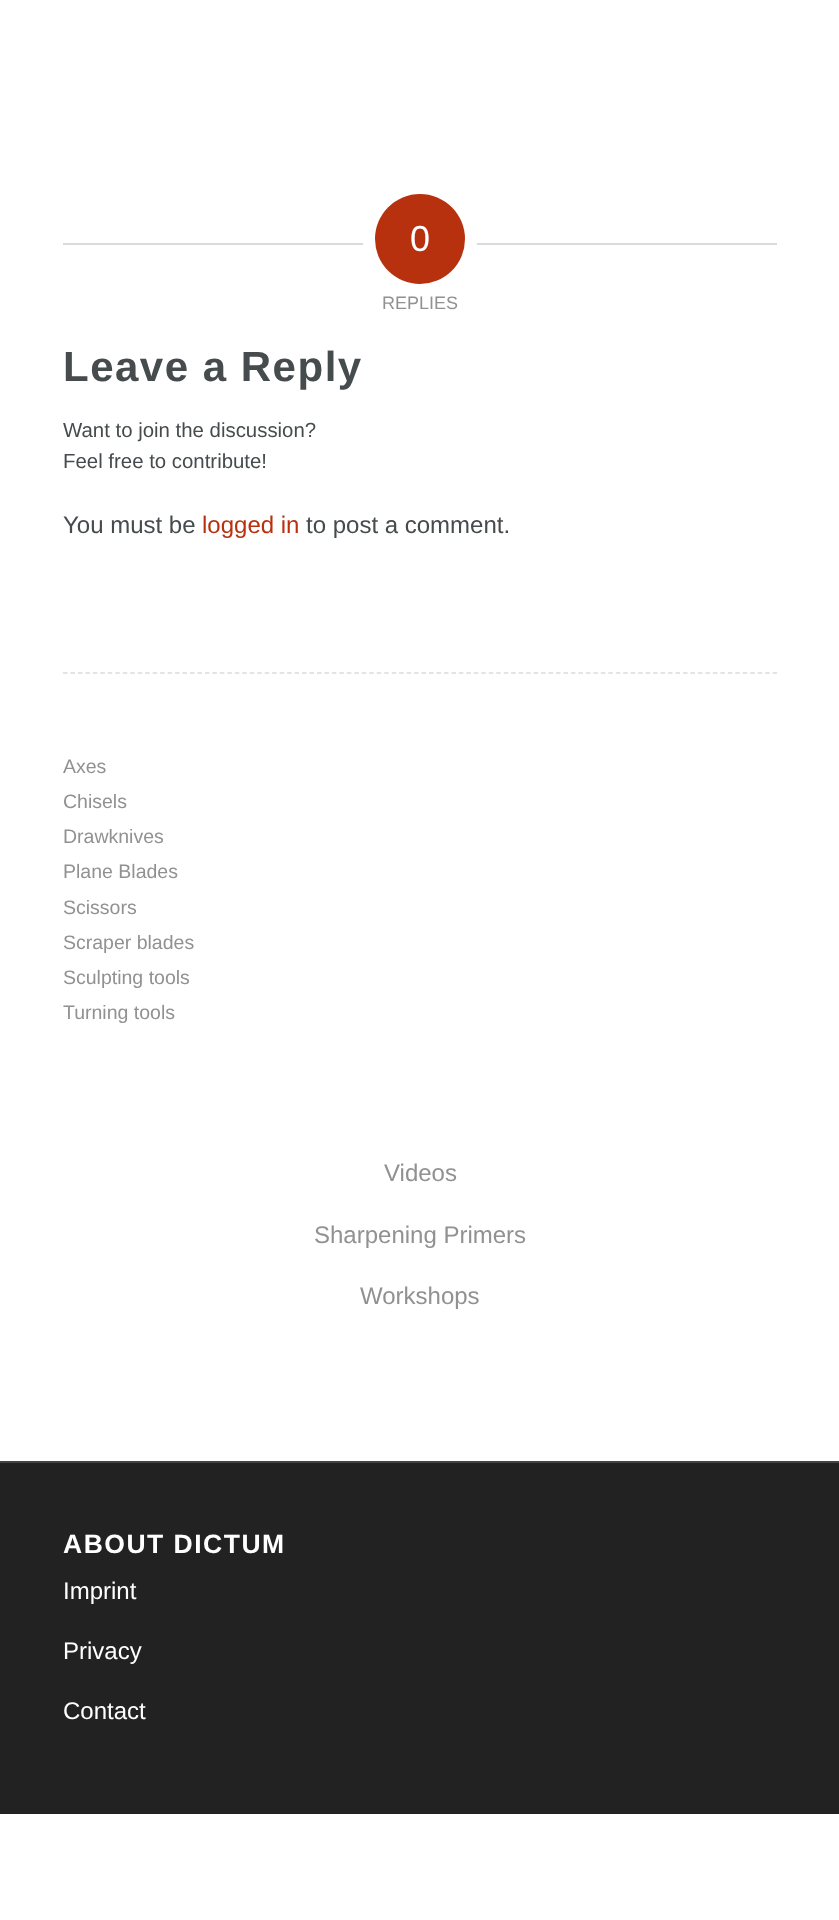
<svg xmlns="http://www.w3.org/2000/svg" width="839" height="1920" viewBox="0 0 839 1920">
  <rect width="100%" height="100%" fill="rgb(255,255,255)"/>
  <rect x="63" y="243" width="300" height="2" fill="rgb(219,219,219)"/>
  <circle cx="420" cy="239" r="45" fill="rgb(184,49,15)"/>
  <text x="410" y="251" font-family="Liberation Sans" font-size="36" fill="rgb(255,255,255)">0</text>
  <rect x="477" y="243" width="300" height="2" fill="rgb(219,219,219)"/>
  <text x="382" y="309" font-family="Liberation Sans" font-size="18" fill="rgb(145,145,145)">REPLIES</text>
  <text x="63" y="381" font-family="Liberation Sans" font-size="42" font-weight="bold" letter-spacing="1.5" fill="rgb(70,75,77)">Leave a Reply</text>
  <g font-family="Liberation Sans" font-size="20.4" fill="rgb(70,75,77)">
    <text>
      <tspan x="63" y="437">Want to join the discussion?</tspan>
      <tspan x="63" y="468">Feel free to contribute!</tspan>
    </text>
  </g>
  <text x="63" y="533" font-family="Liberation Sans" font-size="24" fill="rgb(70,75,77)">You must be</text>
  <text x="202" y="533" font-family="Liberation Sans" font-size="24" fill="rgb(184,49,15)">logged in</text>
  <text x="306" y="533" font-family="Liberation Sans" font-size="24" fill="rgb(70,75,77)">to post a comment.</text>
  <path d="M63 673H777" fill="none" stroke="rgb(219,219,219)" stroke-width="1.5" stroke-dasharray="4.5 2.97"/>
  <g font-family="Liberation Sans" font-size="19.5" fill="rgb(145,145,145)">
    <text>
      <tspan x="63" y="773">Axes</tspan>
      <tspan x="63" y="808">Chisels</tspan>
      <tspan x="63" y="843">Drawknives</tspan>
      <tspan x="63" y="878">Plane Blades</tspan>
      <tspan x="63" y="914">Scissors</tspan>
      <tspan x="63" y="949">Scraper blades</tspan>
      <tspan x="63" y="984">Sculpting tools</tspan>
      <tspan x="63" y="1019">Turning tools</tspan>
    </text>
  </g>
  <g font-family="Liberation Sans" font-size="24" fill="rgb(145,145,145)">
    <text x="384" y="1181">Videos</text>
    <text x="314" y="1243">Sharpening Primers</text>
    <text x="360" y="1304">Workshops</text>
  </g>
  <rect x="0" y="1463" width="839" height="351" fill="rgb(34,34,34)"/>
  <rect x="0" y="1461" width="839" height="2" fill="rgb(68,68,68)"/>
  <text x="63" y="1553" font-family="Liberation Sans" font-size="26.5" font-weight="bold" letter-spacing="1.5" fill="rgb(255,255,255)">ABOUT DICTUM</text>
  <g font-family="Liberation Sans" font-size="24" fill="rgb(255,255,255)">
    <text x="63" y="1599">Imprint</text>
    <text x="63" y="1659">Privacy</text>
    <text x="63" y="1719">Contact</text>
  </g>
</svg>
